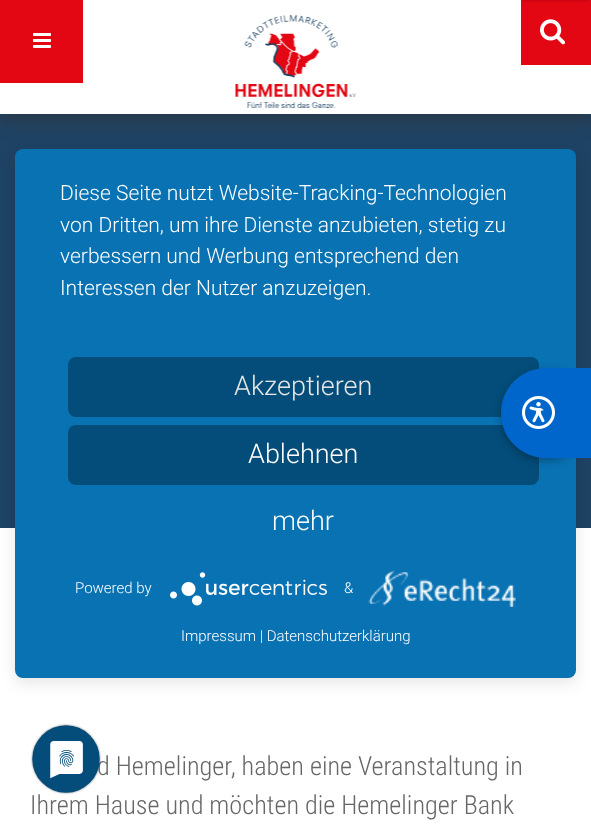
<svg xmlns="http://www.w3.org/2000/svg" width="591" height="824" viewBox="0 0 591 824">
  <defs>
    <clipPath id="clip1"><rect x="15" y="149" width="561" height="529" rx="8"/></clipPath>
  </defs>
  <rect width="100%" height="100%" fill="rgb(255,255,255)"/>
  <rect x="0" y="114" width="591" height="414" fill="rgb(31,67,100)"/>
  <rect x="15" y="153" width="561" height="530" rx="8" fill="rgba(0,0,0,0.1)" filter="blur(7.5px)"/>
  <rect x="-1" y="5" width="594" height="117" fill="rgba(50,50,50,0.5)" filter="blur(7.5px)"/>
  <rect x="0" y="0" width="591" height="114" fill="rgb(255,255,255)"/>
  <rect x="0" y="0" width="83" height="83" fill="rgb(227,6,19)"/>
  <image x="235" y="15" width="121" height="93" href="pic6.png"/>
  <g clip-path="url(#clip1)">
    <rect x="15" y="158" width="561" height="529" fill="rgba(0,0,0,0.3)" filter="blur(27px)"/>
  </g>
  <rect x="15" y="149" width="561" height="529" rx="8" fill="rgb(9,114,179)"/>
  <g font-family="Roboto" font-size="21" font-weight="300" fill="rgb(255,255,255)">
    <text>
      <tspan x="60" y="200">Diese Seite nutzt Website-Tracking-Technologien</tspan>
      <tspan x="60" y="232">von Dritten, um ihre Dienste anzubieten, stetig zu</tspan>
      <tspan x="60" y="263">verbessern und Werbung entsprechend den</tspan>
      <tspan x="60" y="295">Interessen der Nutzer anzuzeigen.</tspan>
    </text>
  </g>
  <rect x="68" y="357" width="471" height="60" rx="8" fill="rgb(4,77,122)"/>
  <text x="234" y="395" font-family="Roboto" font-size="27" font-weight="300" fill="rgb(230,230,230)">Akzeptieren</text>
  <rect x="68" y="425" width="471" height="60" rx="8" fill="rgb(4,77,122)"/>
  <g font-family="Roboto" font-size="27" font-weight="300" fill="rgb(255,255,255)">
    <text x="248" y="463">Ablehnen</text>
    <text x="272" y="530">mehr</text>
  </g>
  <text x="75" y="593" font-family="Roboto" font-size="15" font-weight="300" fill="rgb(255,255,255)">Powered by</text>
  <image x="170" y="572" width="157" height="34" href="pic1.png"/>
  <text x="344" y="593" font-family="Roboto" font-size="15" font-weight="300" fill="rgb(255,255,255)">&amp;</text>
  <image x="368" y="570" width="148" height="37" href="pic2.png"/>
  <text x="181" y="641" font-family="Roboto" font-size="15" font-weight="300" fill="rgb(255,255,255)">Impressum | Datenschutzerklärung</text>
  <g font-family="Roboto Condensed" font-size="26.25" font-weight="300" fill="rgb(102,102,102)">
    <text x="97" y="775">d Hemelinger, haben eine Veranstaltung in</text>
    <text x="30" y="814">Ihrem Hause und möchten die Hemelinger Bank</text>
  </g>
  <image x="30" y="723" width="72" height="72" href="pic3.png"/>
  <rect x="501" y="371" width="90" height="90" rx="45" fill="rgba(0,0,0,0.3)" filter="blur(4px)"/>
  <path d="M546 368H591V458H546C521 458 501 438 501 413C501 388 521 368 546 368Z" fill="rgb(0,102,204)"/>
  <image x="522" y="396" width="33" height="33" href="pic4.png"/>
  <image x="33" y="33" width="18" height="15" href="pic5.png"/>
  <rect x="521" y="0" width="70" height="65" fill="rgb(227,6,19)"/>
  <rect x="522" y="0" width="68" height="2" fill="rgb(210,6,18)"/>
  <image x="540" y="19" width="26" height="26" href="pic7.png"/>
</svg>
